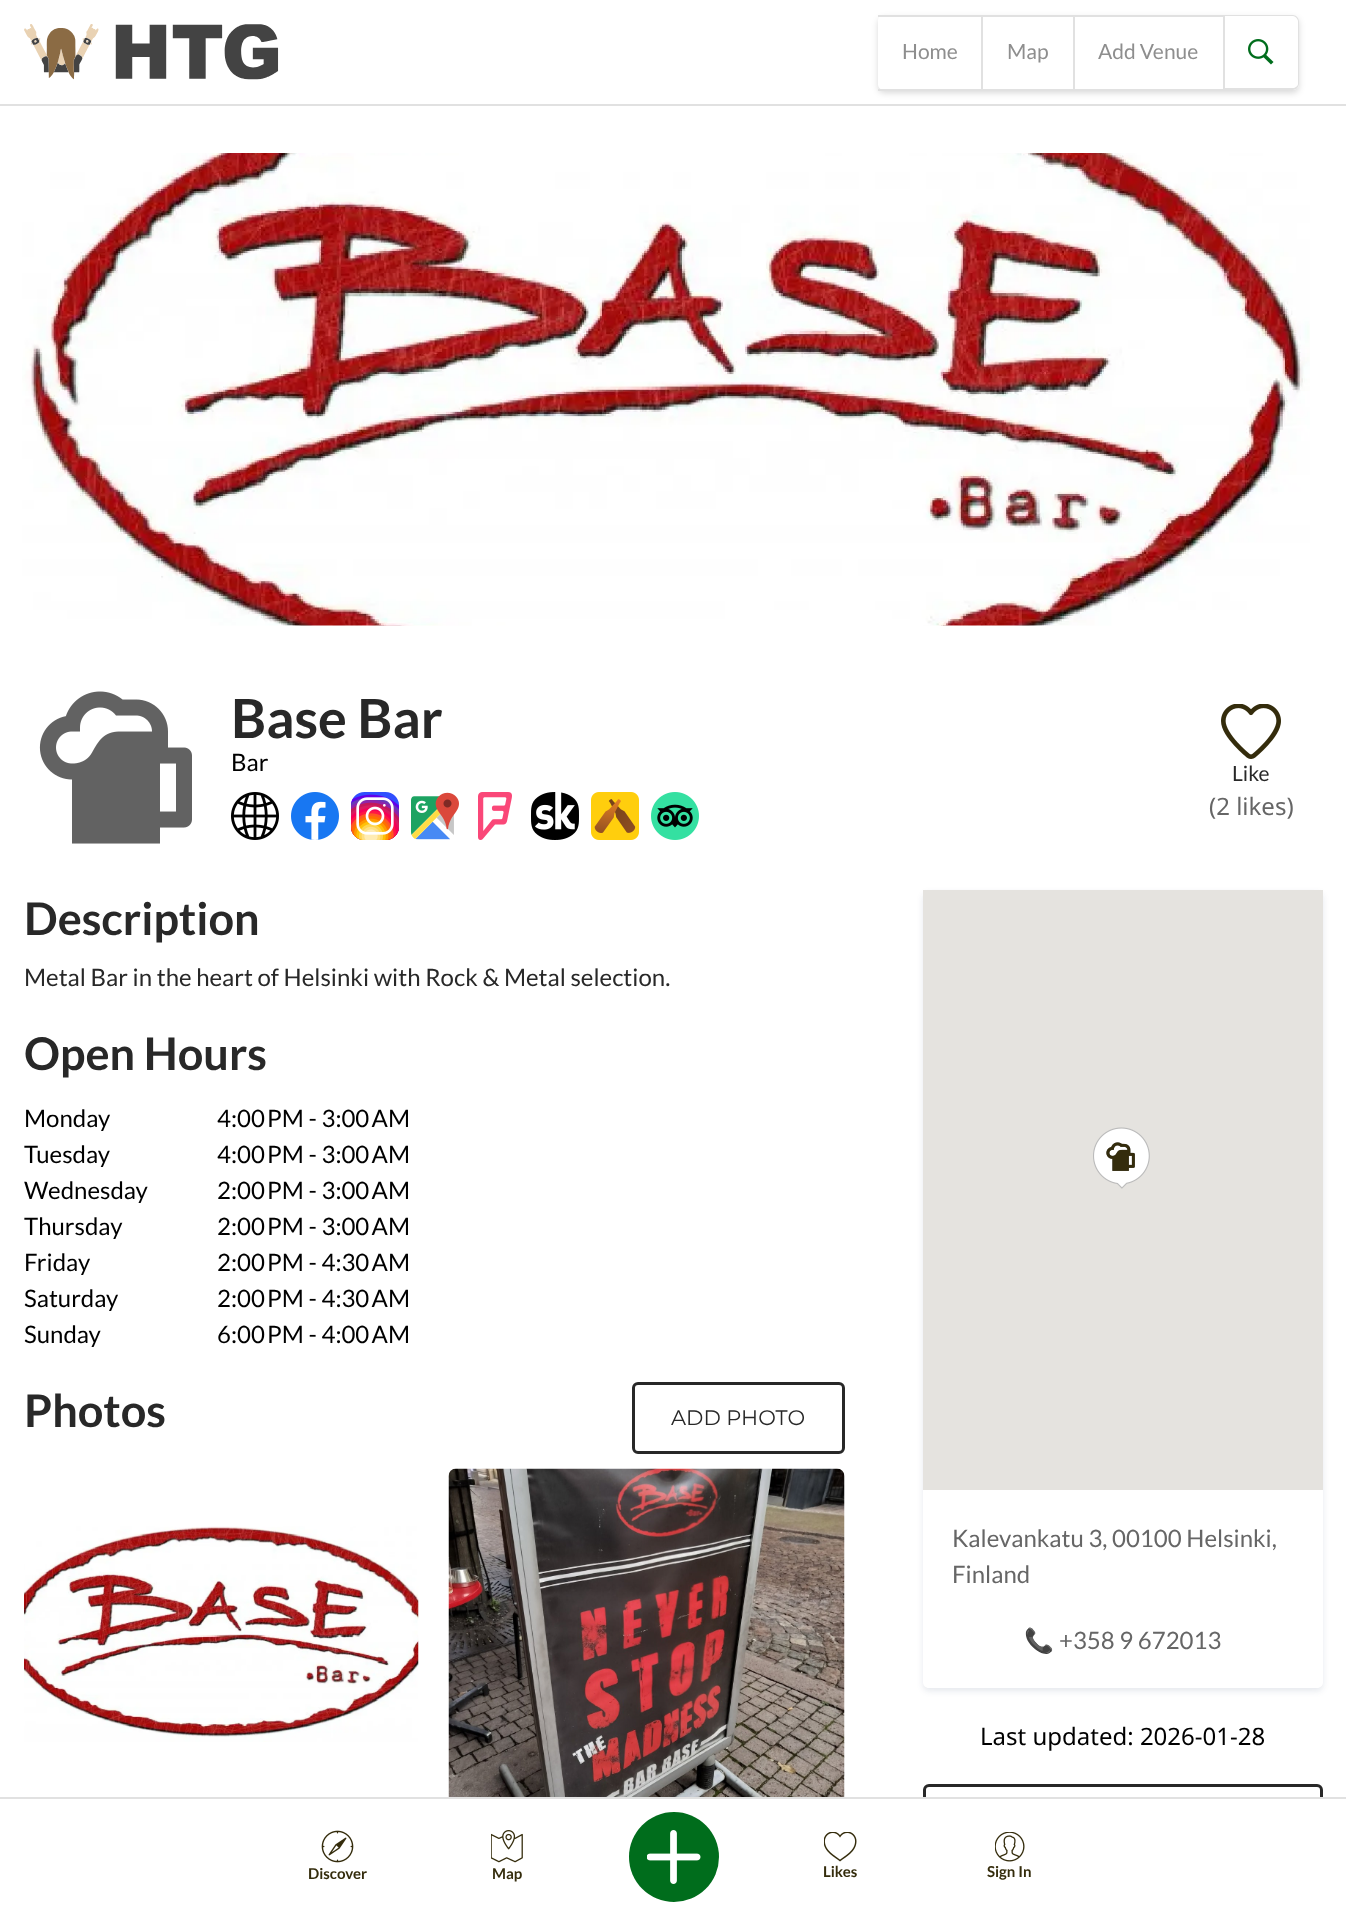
<svg xmlns="http://www.w3.org/2000/svg" width="1346" height="1932" viewBox="0 0 1346 1932">
  <defs>
    <clipPath id="clip1"><path d="M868 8H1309V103H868ZM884 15H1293C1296.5 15 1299 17.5 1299 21V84C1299 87.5 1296.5 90 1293 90H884C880.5 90 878 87.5 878 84V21C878 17.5 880.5 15 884 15Z" clip-rule="evenodd"/></clipPath>
    <clipPath id="clip2"><path d="M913 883H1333V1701H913ZM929 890H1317C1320.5 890 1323 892.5 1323 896V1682C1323 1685.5 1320.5 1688 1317 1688H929C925.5 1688 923 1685.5 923 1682V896C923 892.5 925.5 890 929 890Z" clip-rule="evenodd"/></clipPath>
  </defs>
  <rect width="100%" height="100%" fill="rgb(255,255,255)"/>
  <rect x="0" y="104" width="1346" height="2" fill="rgb(225,225,225)"/>
  <image x="24" y="24" width="255" height="56" href="pic1.png"/>
  <g clip-path="url(#clip1)">
    <rect x="878" y="18" width="421" height="75" rx="6" fill="rgba(0,0,0,0.15)" filter="blur(3px)"/>
  </g>
  <rect x="878" y="15" width="196" height="2" fill="rgb(225,225,225)"/>
  <rect x="981" y="15" width="2" height="75" fill="rgb(225,225,225)"/>
  <rect x="878" y="89" width="105" height="2" fill="rgb(225,225,225)"/>
  <text x="902" y="59" font-family="Lato" font-size="21" fill="rgb(142,142,142)">Home</text>
  <rect x="1073" y="15" width="2" height="75" fill="rgb(225,225,225)"/>
  <rect x="983" y="89" width="91" height="1" fill="rgb(225,225,225)"/>
  <text x="1007" y="59" font-family="Lato" font-size="21" fill="rgb(142,142,142)">Map</text>
  <rect x="1074" y="15" width="150" height="2" fill="rgb(225,225,225)"/>
  <rect x="1223" y="15" width="2" height="75" fill="rgb(225,225,225)"/>
  <rect x="1074" y="89" width="150" height="1" fill="rgb(225,225,225)"/>
  <text x="1098" y="59" font-family="Lato" font-size="21" fill="rgb(142,142,142)">Add Venue</text>
  <path d="M1224 15H1293C1296 15 1299 18 1299 21V84C1299 87 1296 90 1293 90H1224ZM1224 16H1293C1295 16 1298 19 1298 21V84C1298 86 1295 88 1293 88H1224Z" fill="rgb(225,225,225)" fill-rule="evenodd"/>
  <image x="1248" y="39" width="26" height="26" href="pic2.png"/>
  <image x="22" y="153" width="1288" height="473" href="pic3.png"/>
  <image x="39" y="691" width="153" height="153" href="pic4.png"/>
  <text x="231" y="738" font-family="Lato" font-size="54" font-weight="bold" fill="rgb(40,40,40)">Base Bar</text>
  <text x="231" y="771" font-family="Lato" font-size="24" fill="rgb(0,0,0)">Bar</text>
  <image x="231" y="792" width="48" height="48" href="pic5.png"/>
  <image x="291" y="792" width="48" height="48" href="pic6.png"/>
  <image x="351" y="792" width="48" height="48" href="pic7.png"/>
  <image x="411" y="792" width="48" height="48" href="pic8.png"/>
  <image x="478" y="792" width="34" height="48" href="pic9.png"/>
  <image x="531" y="792" width="48" height="48" href="pic10.png"/>
  <image x="591" y="792" width="48" height="48" href="pic11.png"/>
  <image x="651" y="792" width="48" height="48" href="pic12.png"/>
  <image x="1221" y="704" width="60" height="55" href="pic13.png"/>
  <text x="1232" y="781" font-family="Lato" font-size="21" fill="rgb(40,40,40)">Like</text>
  <text x="1209" y="815" font-family="Noto Sans" font-size="24" fill="rgb(102,102,102)">(2 likes)</text>
  <text x="24" y="935" font-family="Lato" font-size="45" font-weight="bold" fill="rgb(40,40,40)">Description</text>
  <text x="24" y="986" font-family="Lato" font-size="24" fill="rgb(40,40,40)">Metal Bar in the heart of Helsinki with Rock &amp; Metal selection.</text>
  <text x="24" y="1070" font-family="Lato" font-size="45" font-weight="bold" fill="rgb(40,40,40)">Open Hours</text>
  <g font-family="Lato" font-size="24" fill="rgb(0,0,0)">
    <text x="24" y="1127">Monday</text>
    <text x="217" y="1127">4:00 PM - 3:00 AM</text>
    <text x="24" y="1163">Tuesday</text>
    <text x="217" y="1163">4:00 PM - 3:00 AM</text>
    <text x="24" y="1199">Wednesday</text>
    <text x="217" y="1199">2:00 PM - 3:00 AM</text>
    <text x="24" y="1235">Thursday</text>
    <text x="217" y="1235">2:00 PM - 3:00 AM</text>
    <text x="24" y="1271">Friday</text>
    <text x="217" y="1271">2:00 PM - 4:30 AM</text>
    <text x="24" y="1307">Saturday</text>
    <text x="217" y="1307">2:00 PM - 4:30 AM</text>
    <text x="24" y="1343">Sunday</text>
    <text x="217" y="1343">6:00 PM - 4:00 AM</text>
  </g>
  <text x="24" y="1427" font-family="Lato" font-size="45" font-weight="bold" fill="rgb(40,40,40)">Photos</text>
  <rect x="633.5" y="1383.5" width="210" height="69" rx="4.5" fill="none" stroke="rgb(40,40,40)" stroke-width="3"/>
  <text x="671" y="1425" font-family="Montserrat" font-size="21" fill="rgb(40,40,40)">ADD PHOTO</text>
  <image x="24" y="1526" width="395" height="216" href="pic14.png"/>
  <image x="448" y="1468" width="397" height="329" href="pic15.png"/>
  <g clip-path="url(#clip2)">
    <rect x="923" y="893" width="400" height="798" rx="6" fill="rgba(3,27,78,0.1)" filter="blur(3px)"/>
  </g>
  <rect x="923" y="890" width="400" height="600" fill="rgb(229,227,223)"/>
  <image x="1093" y="1127" width="57" height="62" href="pic16.png"/>
  <g font-family="Lato" font-size="24" fill="rgb(102,102,102)">
    <text>
      <tspan x="952" y="1547">Kalevankatu 3, 00100 Helsinki,</tspan>
      <tspan x="952" y="1583">Finland</tspan>
    </text>
  </g>
  <text x="1024" y="1649" font-family="Noto Color Emoji" font-size="24" fill="rgb(102,102,102)">📞</text>
  <text x="1059" y="1649" font-family="Lato" font-size="24" fill="rgb(102,102,102)">+358 9 672013</text>
  <text x="980" y="1745" font-family="Noto Sans" font-size="24" fill="rgb(0,0,0)">Last updated: 2026-01-28</text>
  <rect x="924.5" y="1785.5" width="397" height="111" rx="4.5" fill="none" stroke="rgb(40,40,40)" stroke-width="3"/>
  <rect x="923" y="1799" width="400" height="99" fill="rgb(255,255,255)"/>
  <rect x="0" y="1797" width="1346" height="2" fill="rgb(225,225,225)"/>
  <image x="321" y="1830" width="33" height="33" href="pic17.png"/>
  <text x="308" y="1879" font-family="Lato" font-size="15" font-weight="bold" fill="rgb(52,44,12)">Discover</text>
  <image x="491" y="1830" width="32" height="33" href="pic18.png"/>
  <text x="492" y="1879" font-family="Lato" font-size="15" font-weight="bold" fill="rgb(52,44,12)">Map</text>
  <circle cx="674" cy="1857" r="45" fill="rgb(0,109,28)"/>
  <image x="647" y="1830" width="54" height="54" href="pic19.png"/>
  <image x="824" y="1832" width="33" height="30" href="pic20.png"/>
  <text x="823" y="1877" font-family="Lato" font-size="15" font-weight="bold" fill="rgb(52,44,12)">Likes</text>
  <image x="995" y="1832" width="30" height="30" href="pic21.png"/>
  <text x="987" y="1877" font-family="Lato" font-size="15" font-weight="bold" fill="rgb(52,44,12)">Sign In</text>
</svg>
